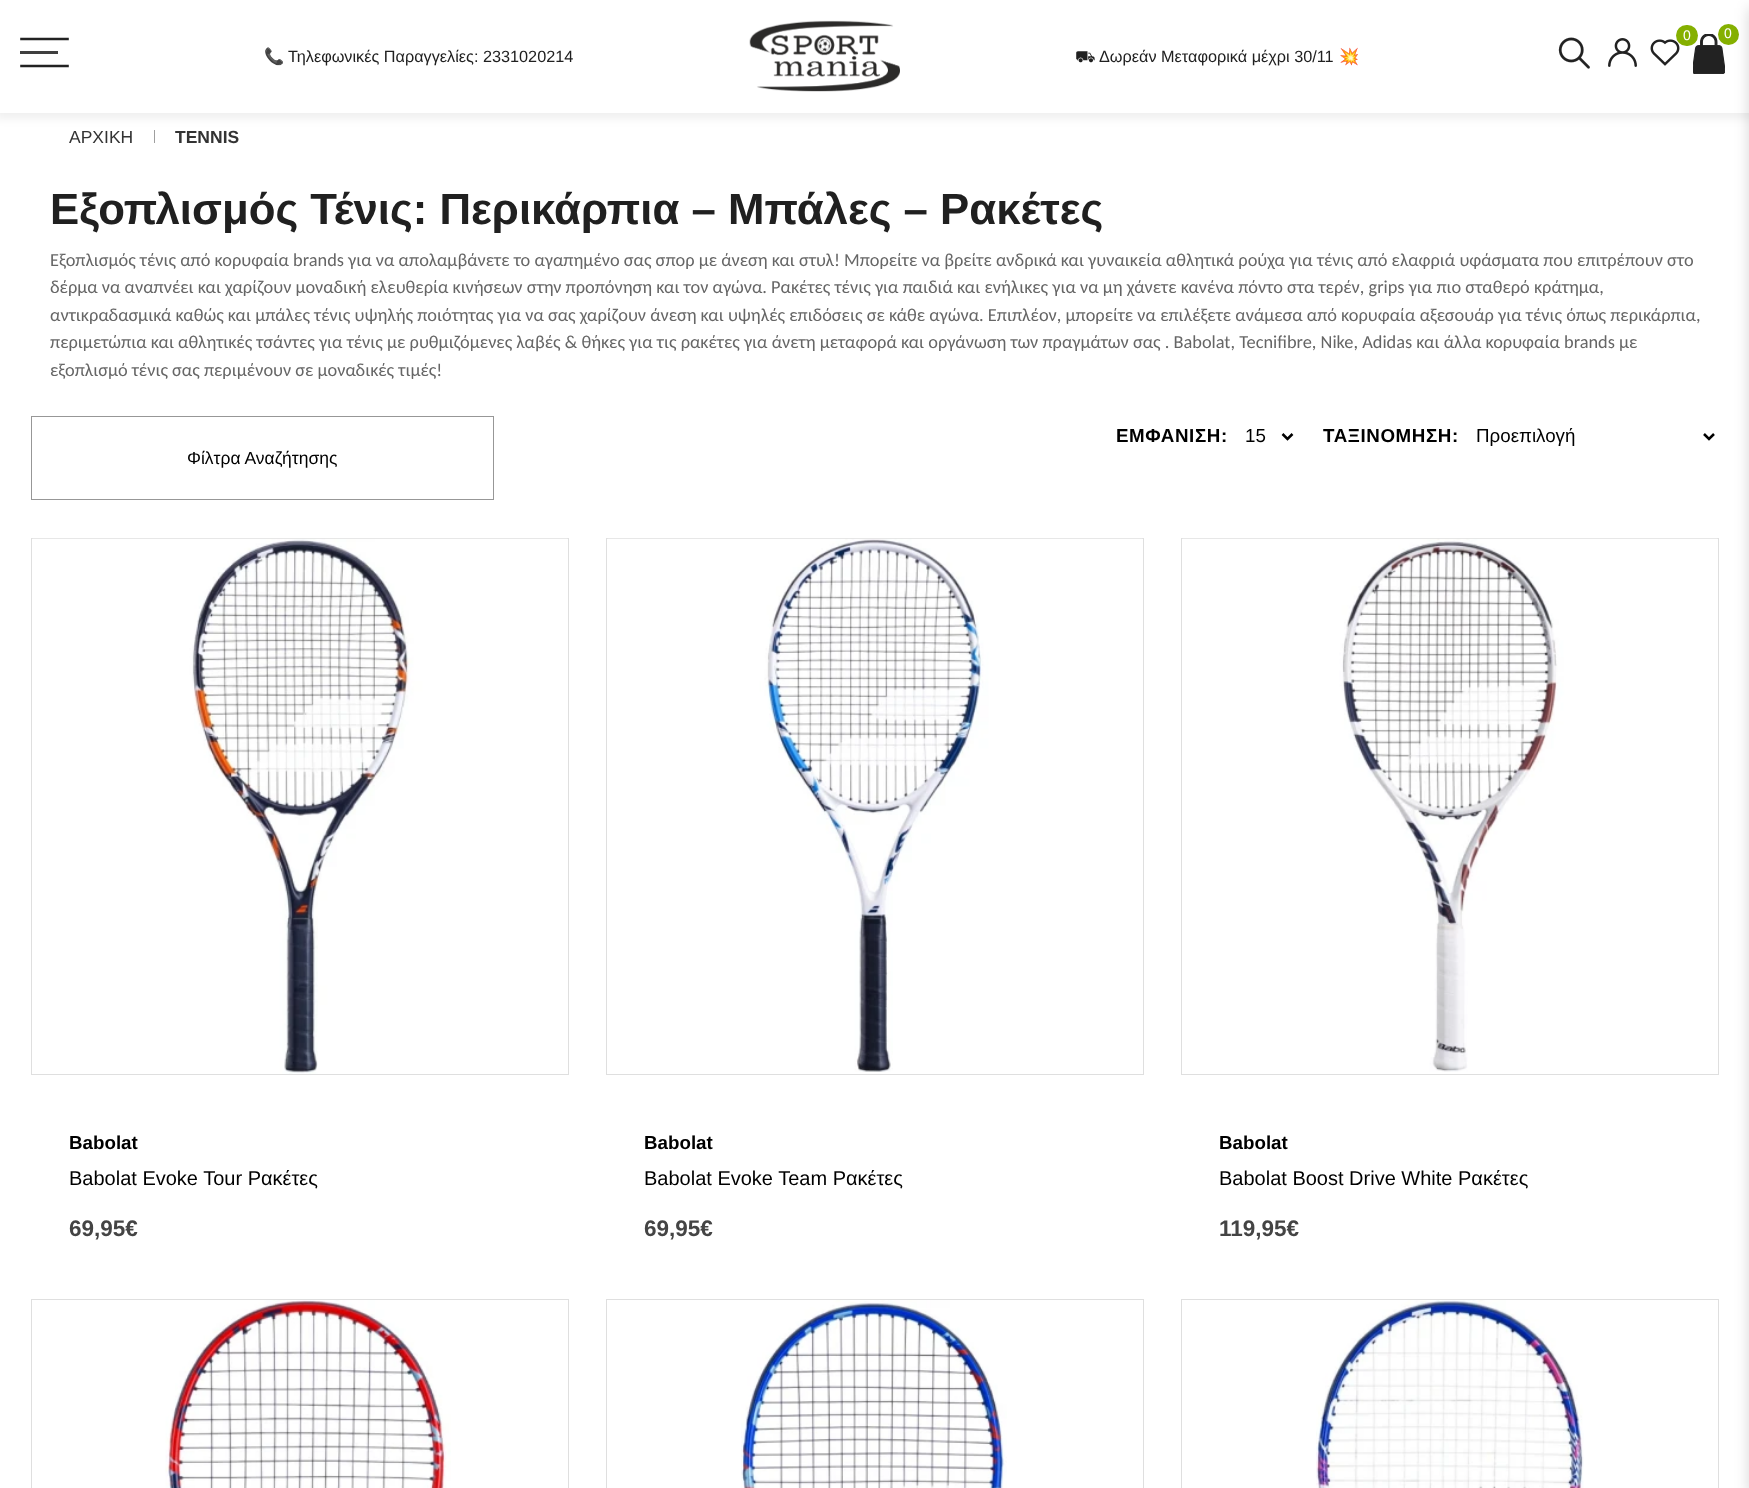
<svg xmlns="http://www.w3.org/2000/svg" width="1749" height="1488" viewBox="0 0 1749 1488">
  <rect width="100%" height="100%" fill="rgb(255,255,255)"/>
  <rect x="154" y="130" width="1" height="13" fill="rgb(159,159,159)"/>
  <rect x="-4" y="-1" width="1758" height="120" fill="rgba(0,0,0,0.06)" filter="blur(4.5px)"/>
  <rect x="0" y="0" width="1749" height="113" fill="rgb(255,255,255)"/>
  <image x="749" y="20" width="151" height="72" href="pic1.png"/>
  <image x="1650" y="39" width="30" height="27" href="pic2.png"/>
  <rect x="1676" y="25" width="22" height="21" rx="10.5" fill="rgb(133,176,0)"/>
  <text x="1683" y="40" font-family="Liberation Sans" font-size="14" fill="rgb(255,255,255)">0</text>
  <image x="1693" y="34" width="32" height="40" href="pic3.png"/>
  <circle cx="1728.5" cy="34.5" r="10.5" fill="rgb(133,176,0)"/>
  <rect x="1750" y="8" width="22" height="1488" fill="rgba(0,0,0,0.18)" filter="blur(7.5px)"/>
  <text x="1724" y="38" font-family="Liberation Sans" font-size="14" fill="rgb(255,255,255)">0</text>
  <image x="1558" y="37" width="32" height="32" href="pic4.png"/>
  <image x="1608" y="38" width="29" height="29" href="pic5.png"/>
  <path d="M21.5 39H67.5" fill="none" stroke="rgb(34,34,34)" stroke-width="2.6" stroke-linecap="square" stroke-linejoin="round"/>
  <rect x="20" y="51" width="38" height="3" fill="rgb(63,63,63)"/>
  <path d="M21.5 66H67.5" fill="none" stroke="rgb(34,34,34)" stroke-width="2.6" stroke-linecap="square" stroke-linejoin="round"/>
  <text x="264" y="62" font-family="Noto Color Emoji" font-size="16.25" fill="rgb(32,32,32)">📞</text>
  <text x="288" y="62" font-family="Liberation Sans" font-size="16.25" fill="rgb(32,32,32)">Τηλεφωνικές Παραγγελίες: 2331020214</text>
  <text x="1075" y="62" font-family="STIX Two Math" font-size="16.25" fill="rgb(32,32,32)">⛟</text>
  <text x="1099" y="62" font-family="Liberation Sans" font-size="16.25" fill="rgb(32,32,32)">Δωρεάν Μεταφορικά μέχρι 30/11</text>
  <text x="1339" y="62" font-family="Noto Color Emoji" font-size="16.25" fill="rgb(32,32,32)">💥</text>
  <text x="69" y="143" font-family="Liberation Sans" font-size="17.5" fill="rgb(51,51,51)">ΑΡΧΙΚΗ</text>
  <text x="175" y="143" font-family="Liberation Sans" font-size="17.5" font-weight="bold" fill="rgb(51,51,51)">TENNIS</text>
  <text x="50" y="224" font-family="Liberation Sans" font-size="43.75" font-weight="bold" fill="rgb(32,32,32)">Εξοπλισμός Τένις: Περικάρπια – Μπάλες – Ρακέτες</text>
  <g font-family="Carlito" font-size="18.33" fill="rgb(102,102,102)">
    <text>
      <tspan x="50" y="266">Εξοπλισμός τένις από κορυφαία brands για να απολαμβάνετε το αγαπημένο σας σπορ με άνεση και στυλ! Μπορείτε να βρείτε ανδρικά και γυναικεία αθλητικά ρούχα για τένις από ελαφριά υφάσματα που επιτρέπουν στο</tspan>
      <tspan x="50" y="293">δέρμα να αναπνέει και χαρίζουν μοναδική ελευθερία κινήσεων στην προπόνηση και τον αγώνα. Ρακέτες τένις για παιδιά και ενήλικες για να μη χάνετε κανένα πόντο στα τερέν, grips για πιο σταθερό κράτημα,</tspan>
      <tspan x="50" y="321">αντικραδασμικά καθώς και μπάλες τένις υψηλής ποιότητας για να σας χαρίζουν άνεση και υψηλές επιδόσεις σε κάθε αγώνα. Επιπλέον, μπορείτε να επιλέξετε ανάμεσα από κορυφαία αξεσουάρ για τένις όπως περικάρπια,</tspan>
      <tspan x="50" y="348">περιμετώπια και αθλητικές τσάντες για τένις με ρυθμιζόμενες λαβές &amp; θήκες για τις ρακέτες για άνετη μεταφορά και οργάνωση των πραγμάτων σας . Babolat, Tecnifibre, Nike, Adidas και άλλα κορυφαία brands με</tspan>
      <tspan x="50" y="376">εξοπλισμό τένις σας περιμένουν σε μοναδικές τιμές!</tspan>
    </text>
  </g>
  <text x="1116" y="442" font-family="Liberation Sans" font-size="18.75" font-weight="bold" letter-spacing="0.6" fill="rgb(0,0,0)">ΕΜΦΑΝΙΣΗ:</text>
  <path d="M1282.5 434L1287.5 439L1292.5 434" fill="none" stroke="rgb(0,0,0)" stroke-width="2.5"/>
  <text x="1245" y="442" font-family="Liberation Sans" font-size="18.75" fill="rgb(0,0,0)">15</text>
  <text x="1323" y="442" font-family="Liberation Sans" font-size="18.75" font-weight="bold" letter-spacing="0.6" fill="rgb(0,0,0)">ΤΑΞΙΝΟΜΗΣΗ:</text>
  <path d="M1704 434L1709 439L1714 434" fill="none" stroke="rgb(0,0,0)" stroke-width="2.5"/>
  <text x="1476" y="442" font-family="Liberation Sans" font-size="18.75" fill="rgb(0,0,0)">Προεπιλογή</text>
  <rect x="31.5" y="416.5" width="462" height="83" fill="none" stroke="rgb(151,151,151)"/>
  <text x="187" y="464" font-family="Liberation Sans" font-size="17.5" fill="rgb(0,0,0)">Φίλτρα Αναζήτησης</text>
  <rect x="31.5" y="538.5" width="537" height="536" fill="none" stroke="rgb(223,223,223)"/>
  <image x="32" y="538" width="536" height="536" href="pic6.png"/>
  <text x="69" y="1149" font-family="Liberation Sans" font-size="18.75" font-weight="bold" fill="rgb(0,0,0)">Babolat</text>
  <text x="69" y="1185" font-family="Liberation Sans" font-size="20" fill="rgb(0,0,0)">Babolat Evoke Tour Ρακέτες</text>
  <text x="69" y="1236" font-family="Liberation Sans" font-size="22.5" font-weight="bold" fill="rgb(68,68,68)">69,95€</text>
  <rect x="606.5" y="538.5" width="537" height="536" fill="none" stroke="rgb(223,223,223)"/>
  <image x="607" y="538" width="536" height="534" href="pic7.png"/>
  <text x="644" y="1149" font-family="Liberation Sans" font-size="18.75" font-weight="bold" fill="rgb(0,0,0)">Babolat</text>
  <text x="644" y="1185" font-family="Liberation Sans" font-size="20" fill="rgb(0,0,0)">Babolat Evoke Team Ρακέτες</text>
  <text x="644" y="1236" font-family="Liberation Sans" font-size="22.5" font-weight="bold" fill="rgb(68,68,68)">69,95€</text>
  <rect x="1181.5" y="538.5" width="537" height="536" fill="none" stroke="rgb(223,223,223)"/>
  <image x="1182" y="538" width="536" height="534" href="pic8.png"/>
  <text x="1219" y="1149" font-family="Liberation Sans" font-size="18.75" font-weight="bold" fill="rgb(0,0,0)">Babolat</text>
  <text x="1219" y="1185" font-family="Liberation Sans" font-size="20" fill="rgb(0,0,0)">Babolat Boost Drive White Ρακέτες</text>
  <text x="1219" y="1236" font-family="Liberation Sans" font-size="22.5" font-weight="bold" fill="rgb(68,68,68)">119,95€</text>
  <rect x="31.5" y="1299.5" width="537" height="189" fill="none" stroke="rgb(223,223,223)"/>
  <image x="165" y="1300" width="286" height="188" href="pic9.png"/>
  <rect x="606.5" y="1299.5" width="537" height="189" fill="none" stroke="rgb(223,223,223)"/>
  <image x="741" y="1300" width="266" height="188" href="pic10.png"/>
  <rect x="1181.5" y="1299.5" width="537" height="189" fill="none" stroke="rgb(223,223,223)"/>
  <image x="1316" y="1300" width="268" height="188" href="pic11.png"/>
</svg>
